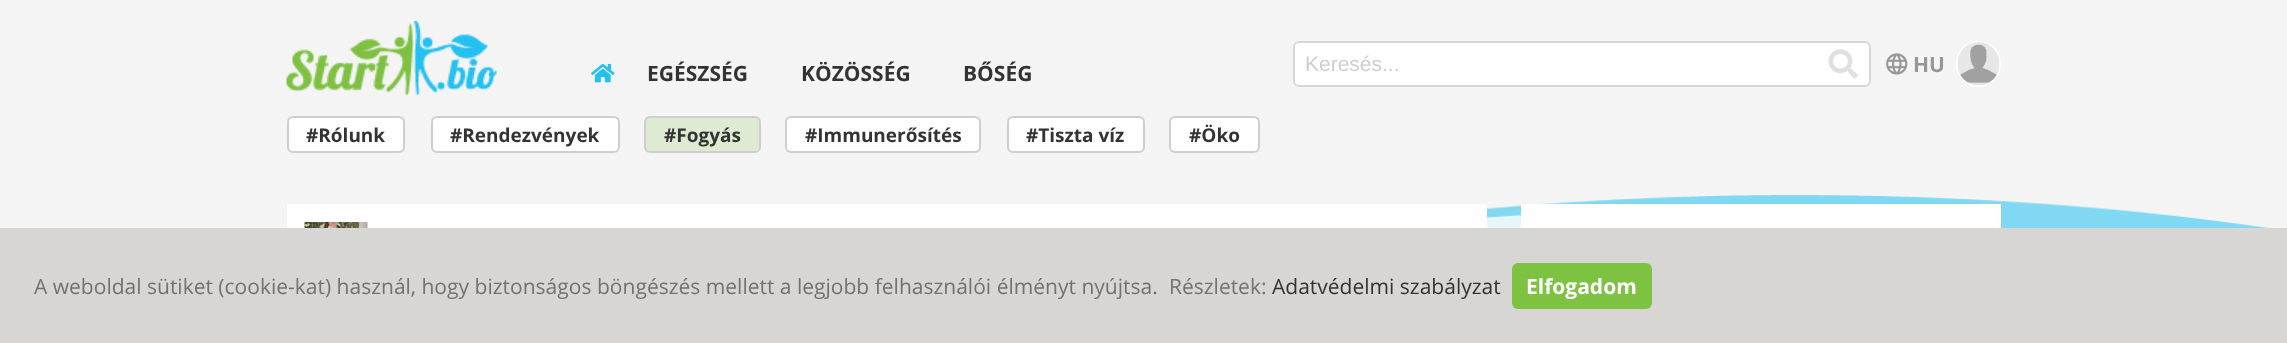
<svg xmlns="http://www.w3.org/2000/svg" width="2287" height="343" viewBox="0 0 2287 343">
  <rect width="100%" height="100%" fill="rgb(244,244,244)"/>
  <image x="0" y="195" width="2287" height="33" href="pic1.png"/>
  <image x="286" y="21" width="211" height="74" href="pic2.png"/>
  <image x="591" y="63" width="24" height="20" href="pic3.png"/>
  <g font-family="Open Sans" font-size="21" font-weight="bold" fill="rgb(51,51,51)">
    <text x="647" y="81">EGÉSZSÉG</text>
    <text x="801" y="81">KÖZÖSSÉG</text>
    <text x="963" y="81">BŐSÉG</text>
  </g>
  <rect x="1294" y="42" width="576" height="44" rx="5" fill="rgb(255,255,255)" stroke="rgb(215,215,215)" stroke-width="2"/>
  <text x="1305" y="71" font-family="Liberation Sans" font-size="21" fill="rgb(206,206,206)">Keresés...</text>
  <image x="1828" y="49" width="30" height="30" href="pic4.png"/>
  <image x="1886" y="53" width="22" height="22" href="pic5.png"/>
  <text x="1913" y="72" font-family="Open Sans" font-size="21" font-weight="bold" fill="rgb(151,151,151)">HU</text>
  <rect x="1957" y="42" width="43" height="44" rx="21.5" fill="none" stroke="rgb(255,255,255)" stroke-width="2"/>
  <image x="1957" y="42" width="43" height="44" href="pic6.png"/>
  <rect x="288" y="117" width="116" height="35" rx="5" fill="rgb(255,255,255)" stroke="rgb(206,206,206)" stroke-width="2"/>
  <text x="306" y="142" font-family="Open Sans" font-size="19" font-weight="bold" fill="rgb(51,51,51)">#Rólunk</text>
  <rect x="432" y="117" width="187" height="35" rx="5" fill="rgb(255,255,255)" stroke="rgb(206,206,206)" stroke-width="2"/>
  <text x="450" y="142" font-family="Open Sans" font-size="19" font-weight="bold" fill="rgb(51,51,51)">#Rendezvények</text>
  <rect x="645" y="117" width="115" height="35" rx="5" fill="rgb(222,234,210)" stroke="rgb(206,206,206)" stroke-width="2"/>
  <text x="664" y="142" font-family="Open Sans" font-size="19" font-weight="bold" fill="rgb(51,51,51)">#Fogyás</text>
  <rect x="786" y="117" width="194" height="35" rx="5" fill="rgb(255,255,255)" stroke="rgb(206,206,206)" stroke-width="2"/>
  <text x="805" y="142" font-family="Open Sans" font-size="19" font-weight="bold" fill="rgb(51,51,51)">#Immunerősítés</text>
  <rect x="1008" y="117" width="136" height="35" rx="5" fill="rgb(255,255,255)" stroke="rgb(206,206,206)" stroke-width="2"/>
  <text x="1026" y="142" font-family="Open Sans" font-size="19" font-weight="bold" fill="rgb(51,51,51)">#Tiszta víz</text>
  <rect x="1170" y="117" width="89" height="35" rx="5" fill="rgb(255,255,255)" stroke="rgb(206,206,206)" stroke-width="2"/>
  <text x="1189" y="142" font-family="Open Sans" font-size="19" font-weight="bold" fill="rgb(51,51,51)">#Öko</text>
  <rect x="287" y="204" width="1200" height="24" fill="rgb(255,255,255)"/>
  <image x="304" y="222" width="64" height="6" href="pic7.png"/>
  <rect x="1521" y="204" width="480" height="24" fill="rgb(255,255,255)"/>
  <rect x="0" y="228" width="2287" height="115" fill="rgb(216,213,213)"/>
  <g font-family="Open Sans" font-size="21" fill="rgb(114,114,114)">
    <text x="34" y="294">A weboldal sütiket (cookie-kat) használ, hogy biztonságos böngészés mellett a legjobb felhasználói élményt nyújtsa.</text>
    <text x="1169" y="294">Részletek:</text>
  </g>
  <text x="1272" y="294" font-family="Open Sans" font-size="21" fill="rgb(51,51,51)">Adatvédelmi szabályzat</text>
  <rect x="1512" y="263" width="140" height="46" rx="6" fill="rgb(126,194,66)"/>
  <text x="1526" y="294" font-family="Open Sans" font-size="21" font-weight="bold" fill="rgb(255,255,255)">Elfogadom</text>
</svg>
